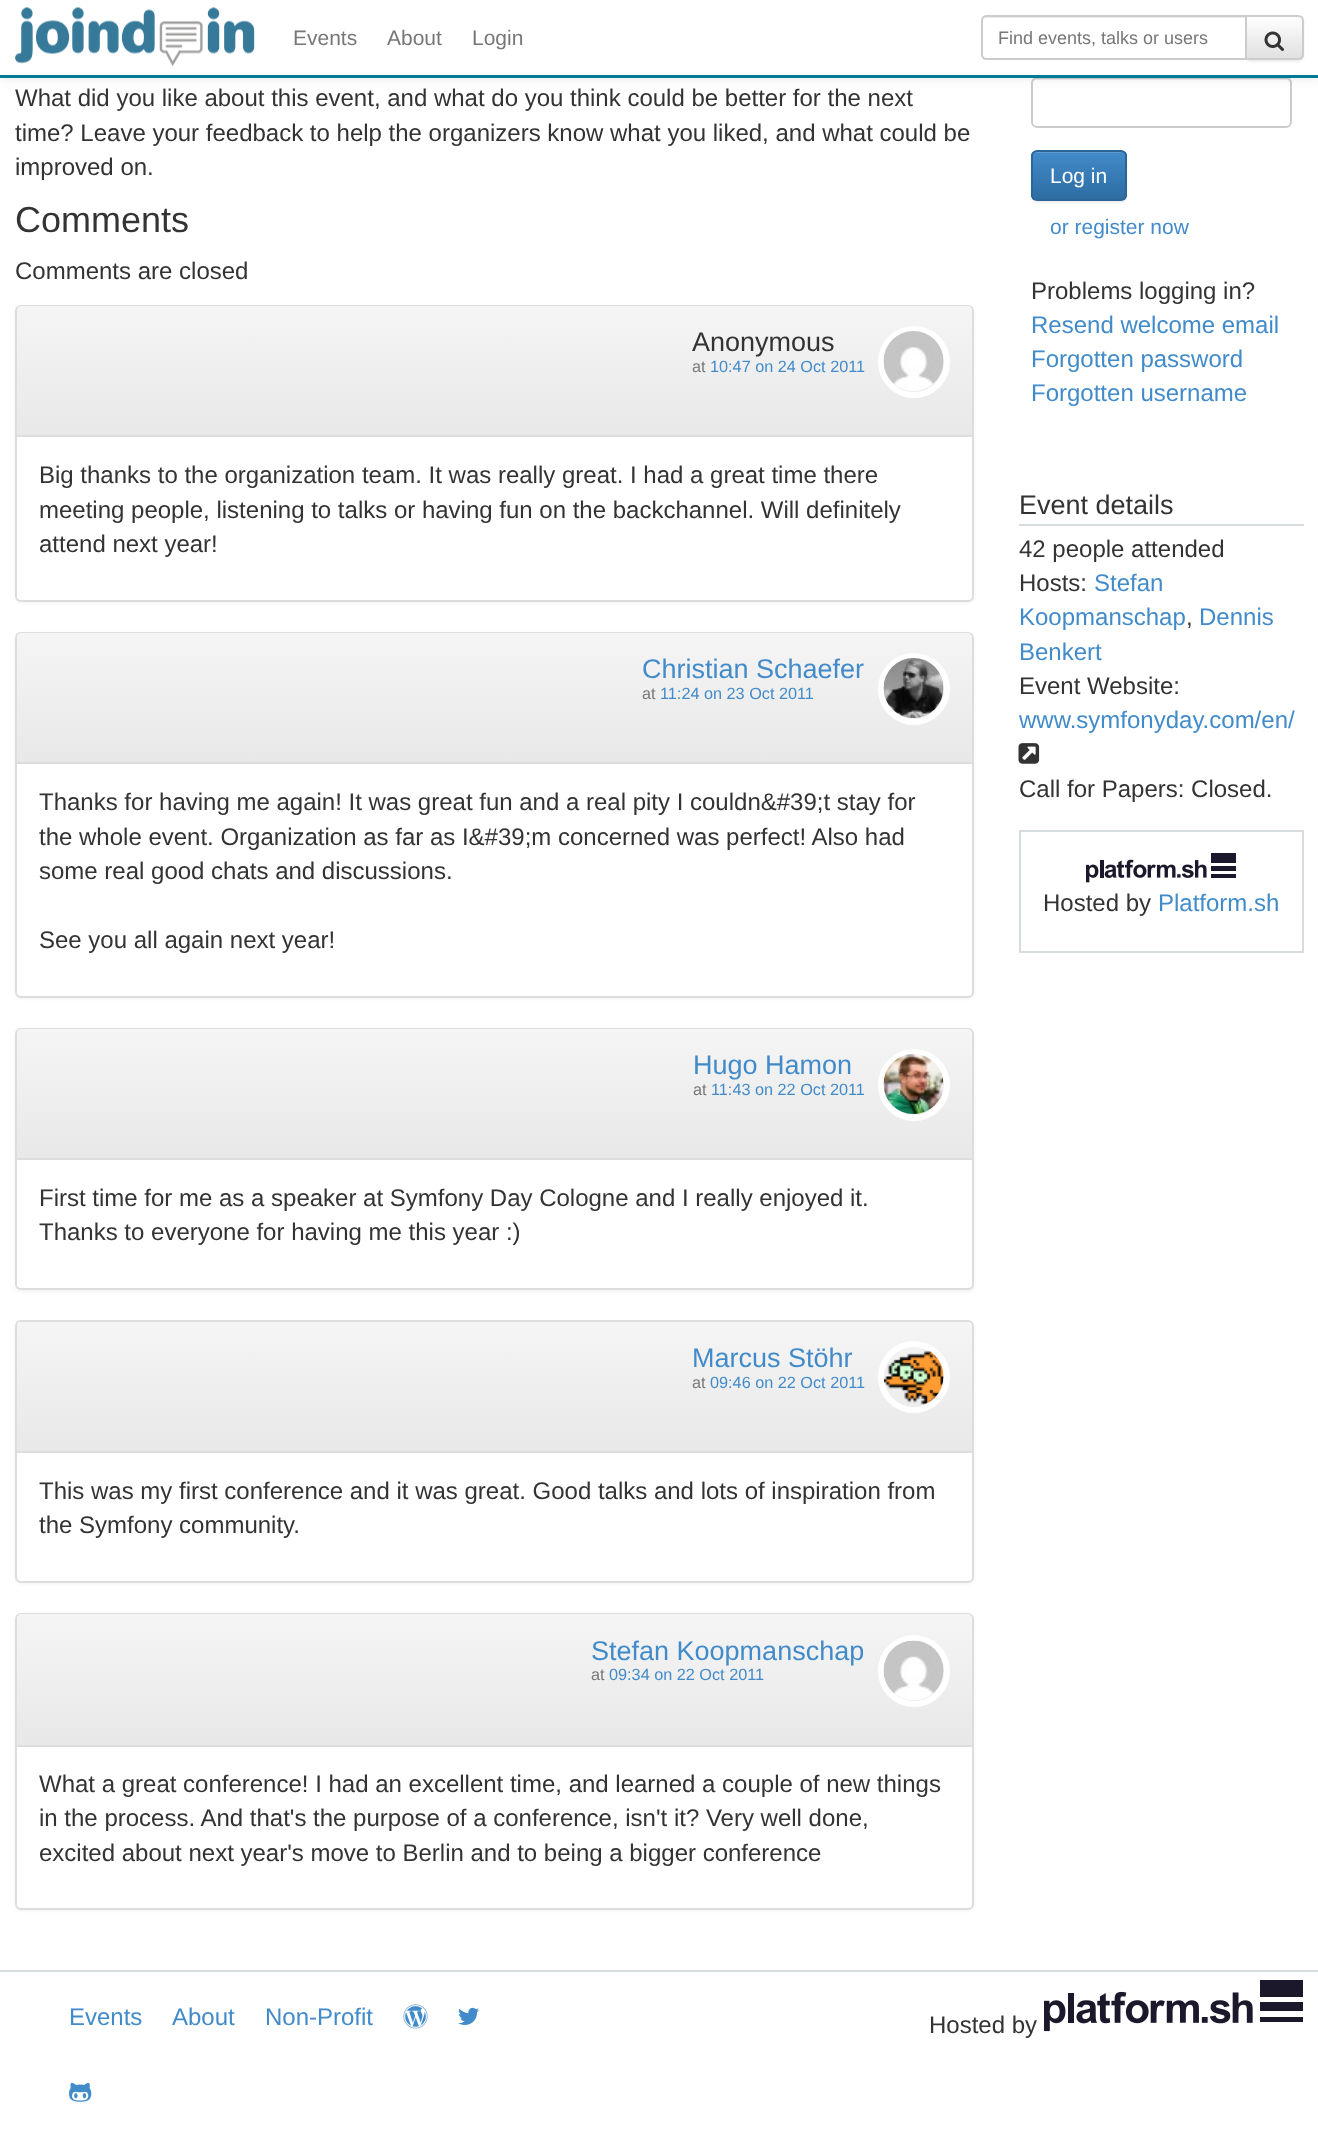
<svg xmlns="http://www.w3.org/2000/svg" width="1318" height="2148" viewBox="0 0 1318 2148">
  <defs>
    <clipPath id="clip1"><path d="M1245 15H1298C1301.5 15 1304 17.5 1304 21V54C1304 57.5 1301.5 60 1298 60H1245Z"/></clipPath>
    <linearGradient id="g1" gradientUnits="userSpaceOnUse" x1="1274" y1="16" x2="1274" y2="59"><stop offset="0" stop-color="rgb(255,255,255)"/><stop offset="1" stop-color="rgb(224,224,224)"/></linearGradient>
    <linearGradient id="g2" gradientUnits="userSpaceOnUse" x1="494" y1="306" x2="494" y2="435"><stop offset="0" stop-color="rgb(245,245,245)"/><stop offset="1" stop-color="rgb(232,232,232)"/></linearGradient>
    <linearGradient id="g3" gradientUnits="userSpaceOnUse" x1="494" y1="633" x2="494" y2="762"><stop offset="0" stop-color="rgb(245,245,245)"/><stop offset="1" stop-color="rgb(232,232,232)"/></linearGradient>
    <linearGradient id="g4" gradientUnits="userSpaceOnUse" x1="494" y1="1029" x2="494" y2="1158"><stop offset="0" stop-color="rgb(245,245,245)"/><stop offset="1" stop-color="rgb(232,232,232)"/></linearGradient>
    <linearGradient id="g5" gradientUnits="userSpaceOnUse" x1="494" y1="1322" x2="494" y2="1451"><stop offset="0" stop-color="rgb(245,245,245)"/><stop offset="1" stop-color="rgb(232,232,232)"/></linearGradient>
    <linearGradient id="g6" gradientUnits="userSpaceOnUse" x1="494" y1="1614" x2="494" y2="1745"><stop offset="0" stop-color="rgb(245,245,245)"/><stop offset="1" stop-color="rgb(232,232,232)"/></linearGradient>
    <clipPath id="clip2"><rect x="1031" y="150" width="96" height="51" rx="6"/></clipPath>
    <linearGradient id="g7" gradientUnits="userSpaceOnUse" x1="1079" y1="152" x2="1079" y2="200"><stop offset="0" stop-color="rgb(66,139,202)"/><stop offset="1" stop-color="rgb(45,108,162)"/></linearGradient>
  </defs>
  <rect width="100%" height="100%" fill="rgb(255,255,255)"/>
  <path d="M1036 80H1286C1288 80 1290 82 1290 84C1290 81 1288 78 1285 78H1037C1034 78 1032 81 1032 84C1032 82 1034 80 1036 80Z" fill="rgb(236,236,236)"/>
  <rect x="1032" y="78" width="259" height="49" rx="5" fill="none" stroke="rgb(204,204,204)" stroke-width="2"/>
  <rect x="0" y="2" width="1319" height="78" fill="rgba(0,0,0,0.07)" filter="blur(4px)"/>
  <rect x="0" y="0" width="1318" height="75" fill="rgb(255,255,255)"/>
  <rect x="0" y="75" width="1318" height="3" fill="rgb(0,123,151)"/>
  <image x="15" y="7" width="240" height="60" href="pic1.png"/>
  <g font-family="Liberation Sans" font-size="21" fill="rgb(119,119,119)">
    <text x="293" y="45">Events</text>
    <text x="387" y="45">About</text>
    <text x="472" y="45">Login</text>
  </g>
  <rect x="1245" y="17" width="59" height="45" rx="6" fill="rgba(0,0,0,0.07)" filter="blur(1px)"/>
  <g clip-path="url(#clip1)">
    <rect x="1247" y="17" width="57" height="42" fill="url(#g1)"/>
  </g>
  <path d="M1246 16H1298C1301 16 1303 18 1303 21V54C1303 57 1301 59 1298 59H1246Z" fill="none" stroke="rgb(204,204,204)" stroke-width="2"/>
  <path d="M986 15H1247V60H986C983 60 981 58 981 55V20C981 17 983 15 986 15Z" fill="rgb(255,255,255)"/>
  <path d="M986 18H1245V17H986C985 17 984 18 983 19Z" fill="rgb(236,236,236)"/>
  <path d="M986 16H1246V59H986C984 59 982 57 982 55V20C982 18 984 16 986 16Z" fill="none" stroke="rgb(204,204,204)" stroke-width="2"/>
  <text x="998" y="44" font-family="Liberation Sans" font-size="18" fill="rgb(119,119,119)">Find events, talks or users</text>
  <image x="1264" y="31" width="20" height="20" href="pic2.png"/>
  <g font-family="Liberation Sans" font-size="24" fill="rgb(51,51,51)">
    <text>
      <tspan x="15" y="106">What did you like about this event, and what do you think could be better for the next</tspan>
      <tspan x="15" y="141">time? Leave your feedback to help the organizers know what you liked, and what could be</tspan>
      <tspan x="15" y="175">improved on.</tspan>
    </text>
  </g>
  <text x="15" y="232" font-family="Liberation Sans" font-size="36" fill="rgb(51,51,51)">Comments</text>
  <text x="15" y="279" font-family="Liberation Sans" font-size="24" fill="rgb(51,51,51)">Comments are closed</text>
  <rect x="15" y="306" width="959" height="297" rx="6" fill="rgba(0,0,0,0.05)" filter="blur(1.5px)"/>
  <rect x="16" y="306" width="957" height="295" rx="5" fill="rgb(255,255,255)" stroke="rgb(221,221,221)" stroke-width="2"/>
  <path d="M22 306H967C970 306 972 308 972 311V435H17V311C17 308 19 306 22 306Z" fill="url(#g2)"/>
  <rect x="17" y="435" width="955" height="2" fill="rgb(221,221,221)"/>
  <text x="692" y="351" font-family="Liberation Sans" font-size="27" fill="rgb(51,51,51)">Anonymous</text>
  <text x="692" y="372" font-family="Liberation Sans" font-size="16.25" fill="rgb(119,119,119)">at</text>
  <text x="710" y="372" font-family="Liberation Sans" font-size="16.25" fill="rgb(66,139,202)">10:47 on 24 Oct 2011</text>
  <circle cx="914" cy="362" r="33" fill="none" stroke="rgb(255,255,255)" stroke-width="6"/>
  <image x="883" y="331" width="61" height="60" href="pic3.png"/>
  <g font-family="Liberation Sans" font-size="24" fill="rgb(51,51,51)">
    <text>
      <tspan x="39" y="483">Big thanks to the organization team. It was really great. I had a great time there</tspan>
      <tspan x="39" y="518">meeting people, listening to talks or having fun on the backchannel. Will definitely</tspan>
      <tspan x="39" y="552">attend next year!</tspan>
    </text>
  </g>
  <rect x="15" y="633" width="959" height="366" rx="6" fill="rgba(0,0,0,0.05)" filter="blur(1.5px)"/>
  <rect x="16" y="633" width="957" height="364" rx="5" fill="rgb(255,255,255)" stroke="rgb(221,221,221)" stroke-width="2"/>
  <path d="M22 633H967C970 633 972 635 972 638V762H17V638C17 635 19 633 22 633Z" fill="url(#g3)"/>
  <rect x="17" y="762" width="955" height="2" fill="rgb(221,221,221)"/>
  <text x="642" y="678" font-family="Liberation Sans" font-size="27" fill="rgb(66,139,202)">Christian Schaefer</text>
  <text x="642" y="699" font-family="Liberation Sans" font-size="16.25" fill="rgb(119,119,119)">at</text>
  <text x="660" y="699" font-family="Liberation Sans" font-size="16.25" fill="rgb(66,139,202)">11:24 on 23 Oct 2011</text>
  <circle cx="914" cy="689" r="33" fill="none" stroke="rgb(255,255,255)" stroke-width="6"/>
  <image x="883" y="658" width="61" height="60" href="pic4.png"/>
  <g font-family="Liberation Sans" font-size="24" fill="rgb(51,51,51)">
    <text>
      <tspan x="39" y="810">Thanks for having me again! It was great fun and a real pity I couldn&amp;#39;t stay for</tspan>
      <tspan x="39" y="845">the whole event. Organization as far as I&amp;#39;m concerned was perfect! Also had</tspan>
      <tspan x="39" y="879">some real good chats and discussions.</tspan>
    </text>
    <text x="39" y="948">See you all again next year!</text>
  </g>
  <rect x="15" y="1029" width="959" height="263" rx="6" fill="rgba(0,0,0,0.05)" filter="blur(1.5px)"/>
  <rect x="16" y="1029" width="957" height="260" rx="5" fill="rgb(255,255,255)" stroke="rgb(221,221,221)" stroke-width="2"/>
  <path d="M22 1029H967C970 1029 972 1031 972 1034V1158H17V1034C17 1031 19 1029 22 1029Z" fill="url(#g4)"/>
  <rect x="17" y="1158" width="955" height="2" fill="rgb(221,221,221)"/>
  <text x="693" y="1074" font-family="Liberation Sans" font-size="27" fill="rgb(66,139,202)">Hugo Hamon</text>
  <text x="693" y="1095" font-family="Liberation Sans" font-size="16.25" fill="rgb(119,119,119)">at</text>
  <text x="711" y="1095" font-family="Liberation Sans" font-size="16.25" fill="rgb(66,139,202)">11:43 on 22 Oct 2011</text>
  <circle cx="914" cy="1085" r="33" fill="none" stroke="rgb(255,255,255)" stroke-width="6"/>
  <image x="883" y="1054" width="61" height="60" href="pic5.png"/>
  <g font-family="Liberation Sans" font-size="24" fill="rgb(51,51,51)">
    <text>
      <tspan x="39" y="1206">First time for me as a speaker at Symfony Day Cologne and I really enjoyed it.</tspan>
      <tspan x="39" y="1240">Thanks to everyone for having me this year :)</tspan>
    </text>
  </g>
  <rect x="15" y="1322" width="959" height="262" rx="6" fill="rgba(0,0,0,0.05)" filter="blur(1.5px)"/>
  <rect x="16" y="1321" width="957" height="261" rx="5" fill="rgb(255,255,255)" stroke="rgb(221,221,221)" stroke-width="2"/>
  <path d="M22 1322H967C970 1322 972 1324 972 1327V1451H17V1327C17 1324 19 1322 22 1322Z" fill="url(#g5)"/>
  <rect x="17" y="1451" width="955" height="2" fill="rgb(221,221,221)"/>
  <text x="692" y="1367" font-family="Liberation Sans" font-size="27" fill="rgb(66,139,202)">Marcus Stöhr</text>
  <text x="692" y="1388" font-family="Liberation Sans" font-size="16.25" fill="rgb(119,119,119)">at</text>
  <text x="710" y="1388" font-family="Liberation Sans" font-size="16.25" fill="rgb(66,139,202)">09:46 on 22 Oct 2011</text>
  <circle cx="914" cy="1377" r="33" fill="none" stroke="rgb(255,255,255)" stroke-width="6"/>
  <image x="883" y="1350" width="61" height="55" href="pic6.png"/>
  <g font-family="Liberation Sans" font-size="24" fill="rgb(51,51,51)">
    <text>
      <tspan x="39" y="1499">This was my first conference and it was great. Good talks and lots of inspiration from</tspan>
      <tspan x="39" y="1533">the Symfony community.</tspan>
    </text>
  </g>
  <rect x="15" y="1614" width="959" height="297" rx="6" fill="rgba(0,0,0,0.05)" filter="blur(1.5px)"/>
  <rect x="16" y="1614" width="957" height="295" rx="5" fill="rgb(255,255,255)" stroke="rgb(221,221,221)" stroke-width="2"/>
  <path d="M22 1614H967C970 1614 972 1616 972 1619V1745H17V1619C17 1616 19 1614 22 1614Z" fill="url(#g6)"/>
  <rect x="17" y="1745" width="955" height="2" fill="rgb(221,221,221)"/>
  <text x="591" y="1660" font-family="Liberation Sans" font-size="27" fill="rgb(66,139,202)">Stefan Koopmanschap</text>
  <text x="591" y="1680" font-family="Liberation Sans" font-size="16.25" fill="rgb(119,119,119)">at</text>
  <text x="609" y="1680" font-family="Liberation Sans" font-size="16.25" fill="rgb(66,139,202)">09:34 on 22 Oct 2011</text>
  <circle cx="914" cy="1671" r="33" fill="none" stroke="rgb(255,255,255)" stroke-width="6"/>
  <image x="883" y="1640" width="61" height="61" href="pic7.png"/>
  <g font-family="Liberation Sans" font-size="24" fill="rgb(51,51,51)">
    <text>
      <tspan x="39" y="1792">What a great conference! I had an excellent time, and learned a couple of new things</tspan>
      <tspan x="39" y="1826">in the process. And that's the purpose of a conference, isn't it? Very well done,</tspan>
      <tspan x="39" y="1861">excited about next year's move to Berlin and to being a bigger conference</tspan>
    </text>
  </g>
  <rect x="1031" y="152" width="96" height="51" rx="6" fill="rgba(0,0,0,0.07)" filter="blur(1px)"/>
  <g clip-path="url(#clip2)">
    <rect x="1031" y="152" width="96" height="48" fill="url(#g7)"/>
  </g>
  <path d="M1036 153H1120C1123 153 1125 155 1125 158C1125 149 1112 152 1106 152H1051C1045 152 1032 149 1032 158C1032 155 1034 153 1036 153Z" fill="rgb(94,156,210)"/>
  <rect x="1032" y="151" width="94" height="49" rx="5" fill="none" stroke="rgb(43,102,154)" stroke-width="2"/>
  <text x="1050" y="183" font-family="Liberation Sans" font-size="21" fill="rgb(255,255,255)">Log in</text>
  <text x="1050" y="234" font-family="Liberation Sans" font-size="21" fill="rgb(66,139,202)">or register now</text>
  <text x="1031" y="299" font-family="Liberation Sans" font-size="24" fill="rgb(51,51,51)">Problems logging in?</text>
  <g font-family="Liberation Sans" font-size="24" fill="rgb(66,139,202)">
    <text>
      <tspan x="1031" y="333">Resend welcome email</tspan>
      <tspan x="1031" y="367">Forgotten password</tspan>
      <tspan x="1031" y="401">Forgotten username</tspan>
    </text>
  </g>
  <rect x="1019" y="524" width="285" height="2" fill="rgb(215,220,223)"/>
  <text x="1019" y="514" font-family="Liberation Sans" font-size="27" fill="rgb(51,51,51)">Event details</text>
  <g font-family="Liberation Sans" font-size="24" fill="rgb(51,51,51)">
    <text>
      <tspan x="1019" y="557">42 people attended</tspan>
      <tspan x="1019" y="591">Hosts:</tspan>
    </text>
  </g>
  <g font-family="Liberation Sans" font-size="24" fill="rgb(66,139,202)">
    <text x="1094" y="591">Stefan</text>
    <text x="1019" y="625">Koopmanschap</text>
  </g>
  <text x="1186" y="625" font-family="Liberation Sans" font-size="24" fill="rgb(51,51,51)">,</text>
  <g font-family="Liberation Sans" font-size="24" fill="rgb(66,139,202)">
    <text x="1199" y="625">Dennis</text>
    <text x="1019" y="660">Benkert</text>
  </g>
  <text x="1019" y="694" font-family="Liberation Sans" font-size="24" fill="rgb(51,51,51)">Event Website:</text>
  <text x="1019" y="728" font-family="Liberation Sans" font-size="24" fill="rgb(66,139,202)">www.symfonyday.com/en/</text>
  <image x="1018" y="743" width="22" height="21" href="pic8.png"/>
  <text x="1019" y="797" font-family="Liberation Sans" font-size="24" fill="rgb(51,51,51)">Call for Papers: Closed.</text>
  <rect x="1020" y="831" width="283" height="121" fill="none" stroke="rgb(215,220,223)" stroke-width="2"/>
  <image x="1086" y="853" width="150" height="30" href="pic9.png"/>
  <text x="1043" y="911" font-family="Liberation Sans" font-size="24" fill="rgb(51,51,51)">Hosted by</text>
  <text x="1158" y="911" font-family="Liberation Sans" font-size="24" fill="rgb(66,139,202)">Platform.sh</text>
  <rect x="0" y="1970" width="1318" height="2" fill="rgb(215,220,223)"/>
  <g font-family="Liberation Sans" font-size="24" fill="rgb(66,139,202)">
    <text x="69" y="2025">Events</text>
    <text x="172" y="2025">About</text>
    <text x="265" y="2025">Non-Profit</text>
  </g>
  <image x="403" y="2004" width="25" height="25" href="pic10.png"/>
  <image x="458" y="2007" width="21" height="18" href="pic11.png"/>
  <image x="69" y="2082" width="23" height="20" href="pic12.png"/>
  <text x="929" y="2033" font-family="Liberation Sans" font-size="24" fill="rgb(51,51,51)">Hosted by</text>
  <image x="1044" y="1980" width="259" height="52" href="pic13.png"/>
</svg>
